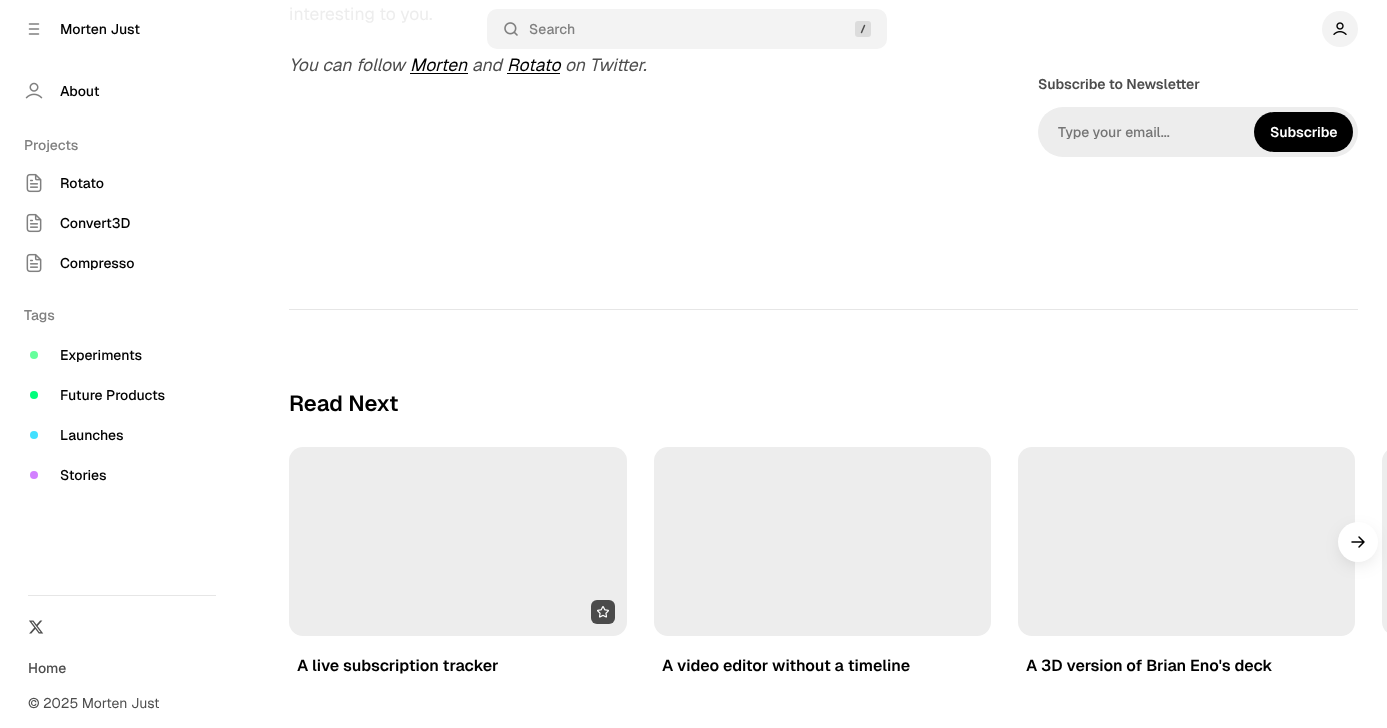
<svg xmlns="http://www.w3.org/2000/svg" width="1387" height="728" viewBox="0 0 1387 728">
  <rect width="100%" height="100%" fill="rgb(255,255,255)"/>
  <text x="289" y="20" font-family="Geist" font-size="17.5" fill="rgb(237,237,237)">interesting to you.</text>
  <text x="289" y="71" font-family="Geist" font-size="17.5" font-style="italic" fill="rgb(77,77,77)">You can follow</text>
  <text x="410" y="71" font-family="Geist" font-size="17.5" font-style="italic" fill="rgb(0,0,0)">Morten</text>
  <rect x="410" y="73" width="58" height="1" fill="rgb(0,0,0)"/>
  <text x="472" y="71" font-family="Geist" font-size="17.5" font-style="italic" fill="rgb(77,77,77)">and</text>
  <text x="507" y="71" font-family="Geist" font-size="17.5" font-style="italic" fill="rgb(0,0,0)">Rotato</text>
  <rect x="507" y="73" width="53" height="1" fill="rgb(0,0,0)"/>
  <text x="565" y="71" font-family="Geist" font-size="17.5" font-style="italic" fill="rgb(77,77,77)">on Twitter.</text>
  <text x="1038" y="89" font-family="Geist" font-size="14" font-weight="600" fill="rgb(77,77,77)">Subscribe to Newsletter</text>
  <rect x="1038" y="107" width="320" height="50" rx="25" fill="rgb(237,237,237)"/>
  <text x="1058" y="137" font-family="Geist" font-size="14" font-weight="500" fill="rgb(117,117,117)">Type your email...</text>
  <rect x="1254" y="112" width="99" height="40" rx="20" fill="rgb(0,0,0)"/>
  <text x="1270" y="137" font-family="Geist" font-size="14" font-weight="600" fill="rgb(255,255,255)">Subscribe</text>
  <rect x="289" y="309" width="1069" height="1" fill="rgb(230,230,230)"/>
  <text x="289" y="411" font-family="Geist" font-size="22" font-weight="600" fill="rgb(0,0,0)">Read Next</text>
  <path d="M1396 447H1387V636H1396C1388.5 636 1382 629.5 1382 622V461C1382 453.5 1388.5 447 1396 447Z" fill="rgb(237,237,237)"/>
  <rect x="1018" y="447" width="337" height="189" rx="14" fill="rgb(237,237,237)"/>
  <rect x="1345" y="534" width="26" height="26" rx="13" fill="rgba(0,0,0,0.2)" filter="blur(10px)"/>
  <circle cx="1358" cy="542" r="20" fill="rgb(255,255,255)"/>
  <path d="M1352 542H1364M1364 542L1359 537M1364 542L1359 547" fill="none" stroke="rgb(0,0,0)" stroke-width="1.5" stroke-linecap="round" stroke-linejoin="round"/>
  <rect x="289" y="447" width="338" height="189" rx="14" fill="rgb(237,237,237)"/>
  <rect x="591" y="600" width="24" height="24" rx="6" fill="rgb(75,75,75)"/>
  <image x="597" y="606" width="12" height="12" href="pic1.png"/>
  <text x="297" y="671" font-family="Geist" font-size="16" font-weight="600" fill="rgb(0,0,0)">A live subscription tracker</text>
  <rect x="654" y="447" width="337" height="189" rx="14" fill="rgb(237,237,237)"/>
  <g font-family="Geist" font-size="16" font-weight="600" fill="rgb(0,0,0)">
    <text x="662" y="671">A video editor without a timeline</text>
    <text x="1026" y="671">A 3D version of Brian Eno's deck</text>
  </g>
  <path d="M29.5 29H38.5M29.5 24H38.5M29.5 34H38.5" fill="none" stroke="rgb(128,128,128)" stroke-width="1.6" stroke-linecap="round" stroke-linejoin="round"/>
  <text x="60" y="34" font-family="Geist" font-size="14" font-weight="500" fill="rgb(0,0,0)">Morten Just</text>
  <rect x="487" y="9" width="400" height="40" rx="10" fill="rgb(243,243,243)"/>
  <image x="504" y="22" width="14" height="14" href="pic2.png"/>
  <text x="529" y="34" font-family="Geist" font-size="14" font-weight="500" fill="rgb(128,128,128)">Search</text>
  <rect x="855" y="21" width="16" height="16" rx="3" fill="rgb(220,220,220)"/>
  <path d="M861.5 32.5L864.5 25.5" fill="none" stroke="rgb(77,77,77)" stroke-width="1.5" stroke-linecap="round" stroke-linejoin="round"/>
  <circle cx="1340" cy="29" r="18" fill="rgb(243,243,243)"/>
  <image x="1333" y="22" width="14" height="13" href="pic3.png"/>
  <image x="25" y="82" width="18" height="17" href="pic4.png"/>
  <text x="60" y="96" font-family="Geist" font-size="14" font-weight="500" fill="rgb(0,0,0)">About</text>
  <text x="24" y="150" font-family="Geist" font-size="14" font-weight="500" fill="rgb(128,128,128)">Projects</text>
  <image x="26" y="173" width="16" height="20" href="pic5.png"/>
  <text x="60" y="188" font-family="Geist" font-size="14" font-weight="500" fill="rgb(0,0,0)">Rotato</text>
  <image x="26" y="213" width="16" height="20" href="pic5.png"/>
  <text x="60" y="228" font-family="Geist" font-size="14" font-weight="500" fill="rgb(0,0,0)">Convert3D</text>
  <image x="26" y="253" width="16" height="20" href="pic5.png"/>
  <text x="60" y="268" font-family="Geist" font-size="14" font-weight="500" fill="rgb(0,0,0)">Compresso</text>
  <text x="24" y="320" font-family="Geist" font-size="14" font-weight="500" fill="rgb(128,128,128)">Tags</text>
  <circle cx="34" cy="355" r="4" fill="rgb(102,255,156)"/>
  <text x="60" y="360" font-family="Geist" font-size="14" font-weight="500" fill="rgb(0,0,0)">Experiments</text>
  <circle cx="34" cy="395" r="4" fill="rgb(0,255,123)"/>
  <text x="60" y="400" font-family="Geist" font-size="14" font-weight="500" fill="rgb(0,0,0)">Future Products</text>
  <circle cx="34" cy="435" r="4" fill="rgb(66,224,255)"/>
  <text x="60" y="440" font-family="Geist" font-size="14" font-weight="500" fill="rgb(0,0,0)">Launches</text>
  <circle cx="34" cy="475" r="4" fill="rgb(210,128,255)"/>
  <text x="60" y="480" font-family="Geist" font-size="14" font-weight="500" fill="rgb(0,0,0)">Stories</text>
  <rect x="28" y="595" width="188" height="1" fill="rgb(230,230,230)"/>
  <image x="29" y="620" width="15" height="14" href="pic6.png"/>
  <text x="28" y="673" font-family="Geist" font-size="14" font-weight="500" fill="rgb(77,77,77)">Home</text>
  <text x="28" y="708" font-family="Geist" font-size="14" fill="rgb(77,77,77)">© 2025 Morten Just</text>
</svg>
